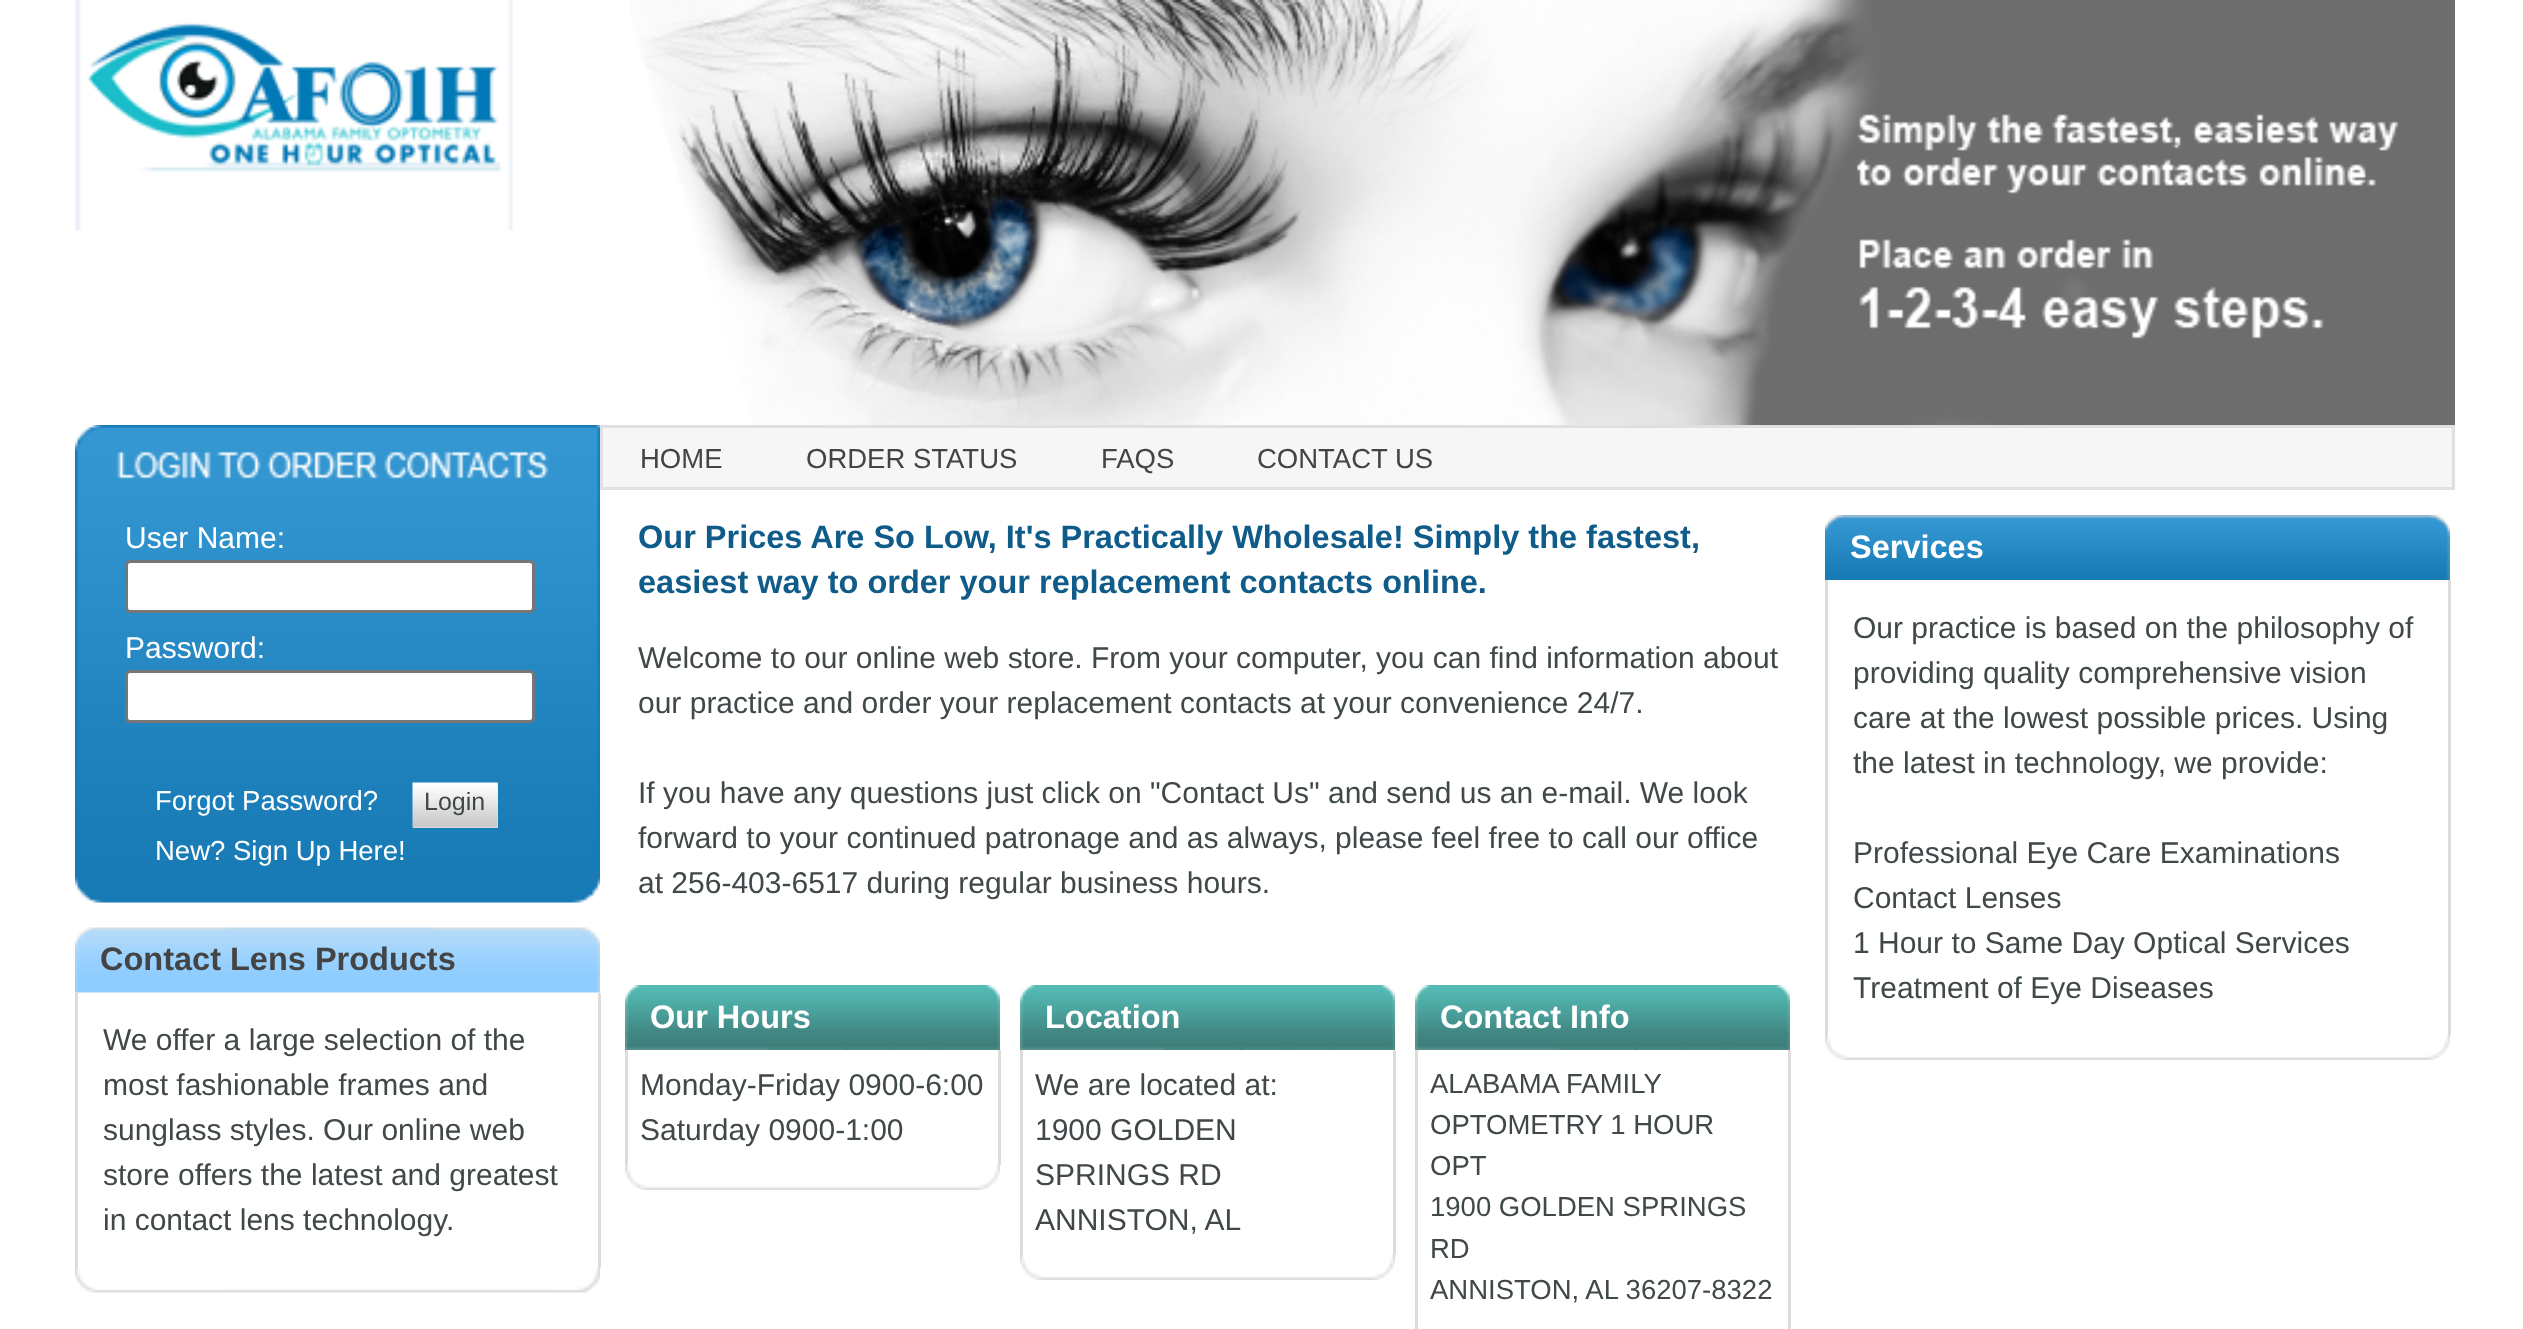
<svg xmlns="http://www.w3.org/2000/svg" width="2523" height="1329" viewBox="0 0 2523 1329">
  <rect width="100%" height="100%" fill="rgb(255,255,255)"/>
  <image x="75" y="0" width="438" height="231" href="pic1.png"/>
  <image x="2399" y="0" width="56" height="425" href="pic2.png"/>
  <image x="631" y="0" width="1768" height="425" href="pic3.png"/>
  <image x="75" y="425" width="525" height="65" href="pic4.png"/>
  <rect x="601.5" y="426.5" width="1852" height="62" fill="rgb(246,246,246)" stroke="rgb(224,224,224)" stroke-width="3"/>
  <g font-family="Liberation Sans" font-size="27.5" fill="rgb(68,68,68)">
    <text x="640" y="468">HOME</text>
    <text x="806" y="468">ORDER STATUS</text>
    <text x="1101" y="468">FAQS</text>
    <text x="1257" y="468">CONTACT US</text>
  </g>
  <image x="75" y="490" width="525" height="413" href="pic5.png"/>
  <text x="125" y="548" font-family="Liberation Sans" font-size="30" fill="rgb(255,255,255)">User Name:</text>
  <rect x="126.5" y="561.5" width="407" height="50" rx="3.5" fill="rgb(255,255,255)" stroke="rgb(118,118,118)" stroke-width="3"/>
  <text x="125" y="658" font-family="Liberation Sans" font-size="30" fill="rgb(255,255,255)">Password:</text>
  <rect x="126.5" y="671.5" width="407" height="50" rx="3.5" fill="rgb(255,255,255)" stroke="rgb(118,118,118)" stroke-width="3"/>
  <text x="155" y="810" font-family="Liberation Sans" font-size="27.5" fill="rgb(255,255,255)">Forgot Password?</text>
  <rect x="413" y="783" width="85" height="45" fill="rgb(231,231,231)"/>
  <image x="412" y="782" width="86" height="46" href="pic6.png"/>
  <text x="424" y="810" font-family="Liberation Sans" font-size="25" fill="rgb(64,72,74)">Login</text>
  <text x="155" y="860" font-family="Liberation Sans" font-size="27.5" fill="rgb(255,255,255)">New? Sign Up Here!</text>
  <image x="75" y="927" width="525" height="66" href="pic7.png"/>
  <text x="100" y="970" font-family="Liberation Sans" font-size="32.5" font-weight="bold" fill="rgb(68,68,68)">Contact Lens Products</text>
  <rect x="598" y="993" width="3" height="275" fill="rgb(223,219,216)"/>
  <rect x="75" y="993" width="3" height="275" fill="rgb(223,219,216)"/>
  <g font-family="Liberation Sans" font-size="30" fill="rgb(64,72,74)">
    <text>
      <tspan x="103" y="1050">We offer a large selection of the</tspan>
      <tspan x="103" y="1095">most fashionable frames and</tspan>
      <tspan x="103" y="1140">sunglass styles. Our online web</tspan>
      <tspan x="103" y="1185">store offers the latest and greatest</tspan>
      <tspan x="103" y="1230">in contact lens technology.</tspan>
    </text>
  </g>
  <image x="75" y="1267" width="525" height="26" href="pic8.png"/>
  <g font-family="Liberation Sans" font-size="32.5" font-weight="bold" fill="rgb(15,92,138)">
    <text>
      <tspan x="638" y="548">Our Prices Are So Low, It's Practically Wholesale! Simply the fastest,</tspan>
      <tspan x="638" y="593">easiest way to order your replacement contacts online.</tspan>
    </text>
  </g>
  <g font-family="Liberation Sans" font-size="30" fill="rgb(64,72,74)">
    <text>
      <tspan x="638" y="668">Welcome to our online web store. From your computer, you can find information about</tspan>
      <tspan x="638" y="713">our practice and order your replacement contacts at your convenience 24/7.</tspan>
    </text>
    <text>
      <tspan x="638" y="803">If you have any questions just click on "Contact Us" and send us an e-mail. We look</tspan>
      <tspan x="638" y="848">forward to your continued patronage and as always, please feel free to call our office</tspan>
      <tspan x="638" y="893">at 256-403-6517 during regular business hours.</tspan>
    </text>
  </g>
  <image x="625" y="985" width="375" height="65" href="pic9.png"/>
  <text x="650" y="1028" font-family="Liberation Sans" font-size="32.5" font-weight="bold" fill="rgb(255,255,255)">Our Hours</text>
  <rect x="998" y="1050" width="3" height="115" fill="rgb(223,219,216)"/>
  <rect x="625" y="1050" width="3" height="115" fill="rgb(223,219,216)"/>
  <g font-family="Liberation Sans" font-size="30" fill="rgb(64,72,74)">
    <text>
      <tspan x="640" y="1095">Monday-Friday 0900-6:00</tspan>
      <tspan x="640" y="1140">Saturday 0900-1:00</tspan>
    </text>
  </g>
  <image x="625" y="1165" width="375" height="25" href="pic10.png"/>
  <image x="1020" y="985" width="375" height="65" href="pic11.png"/>
  <text x="1045" y="1028" font-family="Liberation Sans" font-size="32.5" font-weight="bold" fill="rgb(255,255,255)">Location</text>
  <rect x="1393" y="1050" width="3" height="205" fill="rgb(223,219,216)"/>
  <rect x="1020" y="1050" width="3" height="205" fill="rgb(223,219,216)"/>
  <g font-family="Liberation Sans" font-size="30" fill="rgb(64,72,74)">
    <text>
      <tspan x="1035" y="1095">We are located at:</tspan>
      <tspan x="1035" y="1140">1900 GOLDEN</tspan>
      <tspan x="1035" y="1185">SPRINGS RD</tspan>
      <tspan x="1035" y="1230">ANNISTON, AL</tspan>
    </text>
  </g>
  <image x="1020" y="1255" width="375" height="25" href="pic12.png"/>
  <image x="1415" y="985" width="375" height="65" href="pic13.png"/>
  <text x="1440" y="1028" font-family="Liberation Sans" font-size="32.5" font-weight="bold" fill="rgb(255,255,255)">Contact Info</text>
  <rect x="1788" y="1050" width="3" height="279" fill="rgb(223,219,216)"/>
  <rect x="1415" y="1050" width="3" height="279" fill="rgb(223,219,216)"/>
  <g font-family="Liberation Sans" font-size="27.5" fill="rgb(64,72,74)">
    <text>
      <tspan x="1430" y="1093">ALABAMA FAMILY</tspan>
      <tspan x="1430" y="1134">OPTOMETRY 1 HOUR</tspan>
      <tspan x="1430" y="1175">OPT</tspan>
      <tspan x="1430" y="1216">1900 GOLDEN SPRINGS</tspan>
      <tspan x="1430" y="1258">RD</tspan>
      <tspan x="1430" y="1299">ANNISTON, AL 36207-8322</tspan>
    </text>
  </g>
  <image x="1825" y="515" width="625" height="65" href="pic14.png"/>
  <text x="1850" y="558" font-family="Liberation Sans" font-size="32.5" font-weight="bold" fill="rgb(255,255,255)">Services</text>
  <rect x="2448" y="580" width="3" height="455" fill="rgb(223,219,216)"/>
  <rect x="1825" y="580" width="3" height="455" fill="rgb(223,219,216)"/>
  <g font-family="Liberation Sans" font-size="30" fill="rgb(64,72,74)">
    <text>
      <tspan x="1853" y="638">Our practice is based on the philosophy of</tspan>
      <tspan x="1853" y="683">providing quality comprehensive vision</tspan>
      <tspan x="1853" y="728">care at the lowest possible prices. Using</tspan>
      <tspan x="1853" y="773">the latest in technology, we provide:</tspan>
    </text>
    <text>
      <tspan x="1853" y="863">Professional Eye Care Examinations</tspan>
      <tspan x="1853" y="908">Contact Lenses</tspan>
      <tspan x="1853" y="953">1 Hour to Same Day Optical Services</tspan>
      <tspan x="1853" y="998">Treatment of Eye Diseases</tspan>
    </text>
  </g>
  <image x="1825" y="1035" width="625" height="25" href="pic15.png"/>
</svg>
